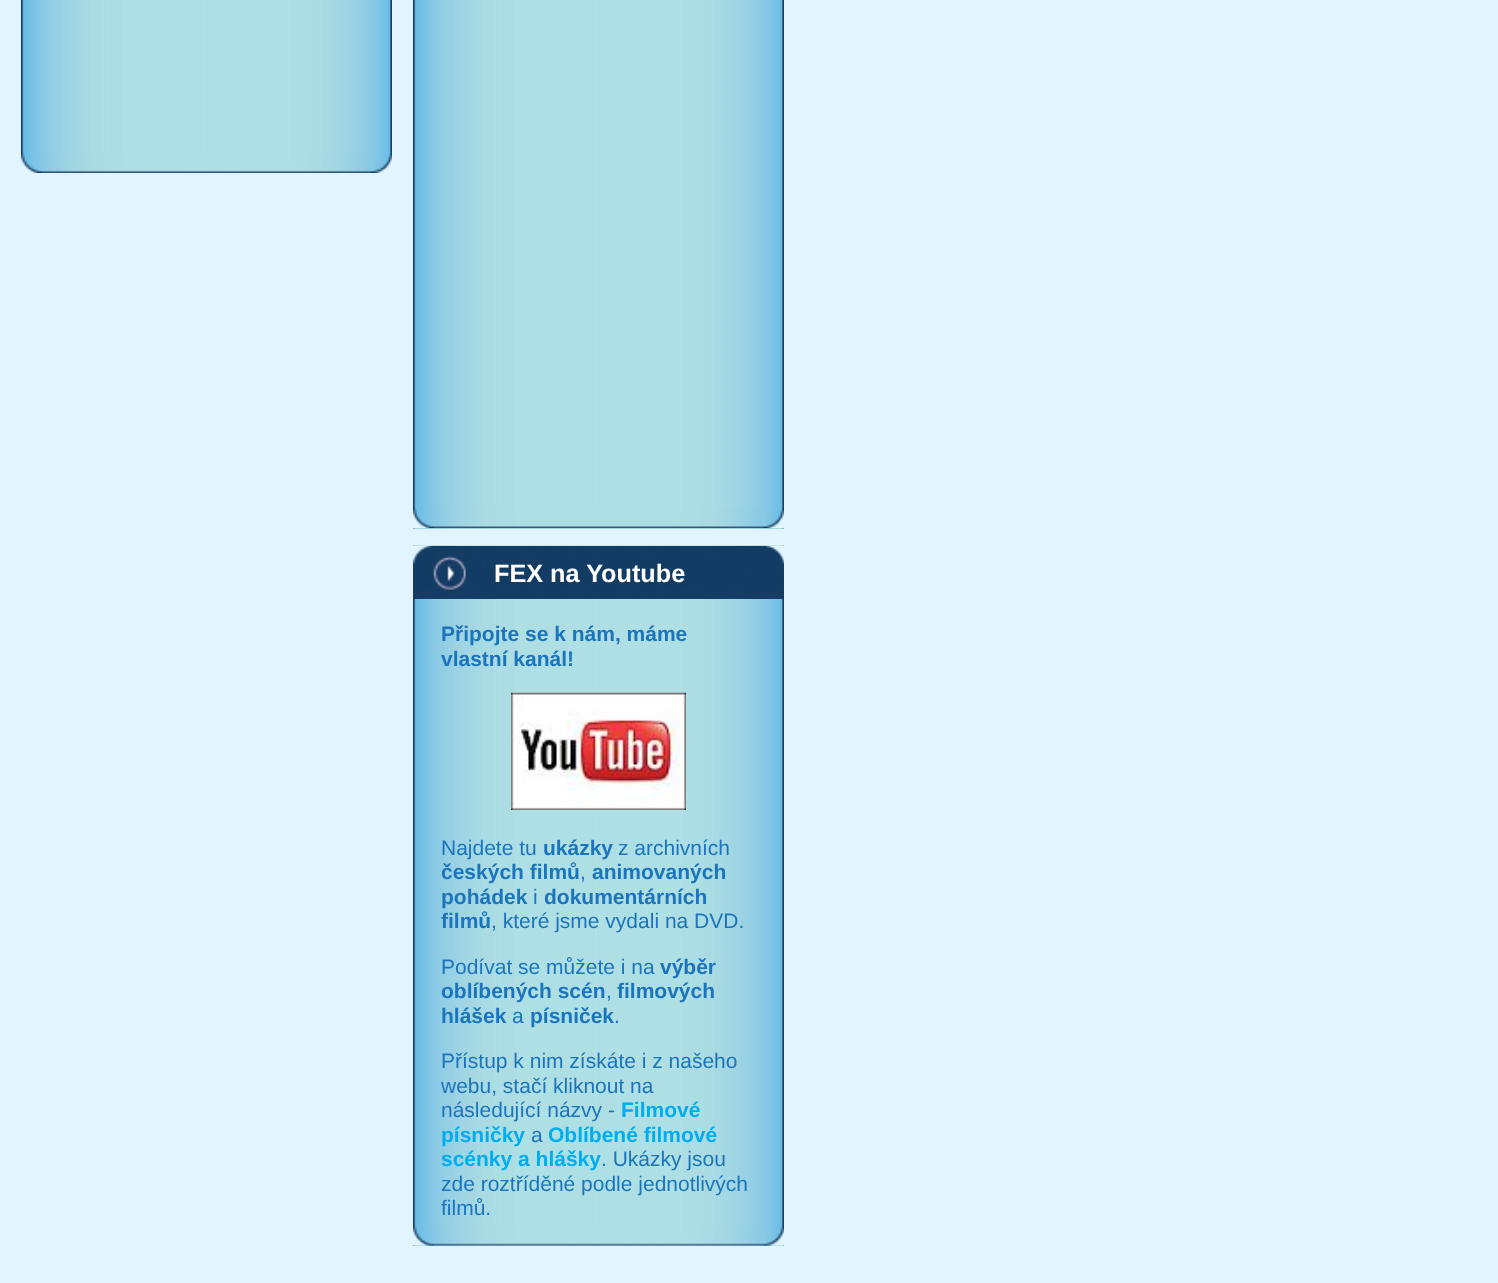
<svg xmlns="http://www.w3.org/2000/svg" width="1498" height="1283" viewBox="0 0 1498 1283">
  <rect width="100%" height="100%" fill="rgb(226,244,253)"/>
  <image x="21" y="0" width="371" height="152" href="pic1.png"/>
  <image x="21" y="152" width="371" height="21" href="pic2.png"/>
  <rect x="413" y="528" width="371" height="1" fill="rgb(174,223,229)"/>
  <image x="413" y="0" width="371" height="529" href="pic3.png"/>
  <image x="413" y="507" width="371" height="22" href="pic4.png"/>
  <image x="413" y="545" width="371" height="701" href="pic5.png"/>
  <rect x="414" y="590" width="369" height="9" fill="rgb(20,60,101)"/>
  <image x="413" y="545" width="371" height="45" href="pic6.png"/>
  <text x="494" y="582" font-family="Liberation Sans" font-size="25.25" font-weight="bold" fill="rgb(255,255,255)">FEX na Youtube</text>
  <image x="413" y="1225" width="371" height="21" href="pic7.png"/>
  <g font-family="Liberation Sans" font-size="21" font-weight="bold" fill="rgb(28,117,188)">
    <text>
      <tspan x="441" y="641">Připojte se k nám, máme</tspan>
      <tspan x="441" y="666">vlastní kanál!</tspan>
    </text>
  </g>
  <image x="511" y="692" width="175" height="118" href="pic8.png"/>
  <text x="441" y="855" font-family="Liberation Sans" font-size="21" fill="rgb(28,117,188)">Najdete tu</text>
  <text x="543" y="855" font-family="Liberation Sans" font-size="21" font-weight="bold" fill="rgb(28,117,188)">ukázky</text>
  <text x="618" y="855" font-family="Liberation Sans" font-size="21" fill="rgb(28,117,188)">z archivních</text>
  <text x="441" y="879" font-family="Liberation Sans" font-size="21" font-weight="bold" fill="rgb(28,117,188)">českých filmů</text>
  <text x="580" y="879" font-family="Liberation Sans" font-size="21" fill="rgb(28,117,188)">,</text>
  <g font-family="Liberation Sans" font-size="21" font-weight="bold" fill="rgb(28,117,188)">
    <text x="592" y="879">animovaných</text>
    <text x="441" y="904">pohádek</text>
  </g>
  <text x="533" y="904" font-family="Liberation Sans" font-size="21" fill="rgb(28,117,188)">i</text>
  <g font-family="Liberation Sans" font-size="21" font-weight="bold" fill="rgb(28,117,188)">
    <text x="544" y="904">dokumentárních</text>
    <text x="441" y="928">filmů</text>
  </g>
  <g font-family="Liberation Sans" font-size="21" fill="rgb(28,117,188)">
    <text x="491" y="928">, které jsme vydali na DVD.</text>
    <text x="441" y="974">Podívat se můžete i na</text>
  </g>
  <g font-family="Liberation Sans" font-size="21" font-weight="bold" fill="rgb(28,117,188)">
    <text x="660" y="974">výběr</text>
    <text x="441" y="998">oblíbených scén</text>
  </g>
  <text x="606" y="998" font-family="Liberation Sans" font-size="21" fill="rgb(28,117,188)">,</text>
  <g font-family="Liberation Sans" font-size="21" font-weight="bold" fill="rgb(28,117,188)">
    <text x="617" y="998">filmových</text>
    <text x="441" y="1023">hlášek</text>
  </g>
  <text x="512" y="1023" font-family="Liberation Sans" font-size="21" fill="rgb(28,117,188)">a</text>
  <text x="530" y="1023" font-family="Liberation Sans" font-size="21" font-weight="bold" fill="rgb(28,117,188)">písniček</text>
  <g font-family="Liberation Sans" font-size="21" fill="rgb(28,117,188)">
    <text x="614" y="1023">.</text>
    <text>
      <tspan x="441" y="1068">Přístup k nim získáte i z našeho</tspan>
      <tspan x="441" y="1093">webu, stačí kliknout na</tspan>
      <tspan x="441" y="1117">následující názvy -</tspan>
    </text>
  </g>
  <g font-family="Liberation Sans" font-size="21" font-weight="bold" fill="rgb(0,174,239)">
    <text x="621" y="1117">Filmové</text>
    <text x="441" y="1142">písničky</text>
  </g>
  <text x="531" y="1142" font-family="Liberation Sans" font-size="21" fill="rgb(28,117,188)">a</text>
  <g font-family="Liberation Sans" font-size="21" font-weight="bold" fill="rgb(0,174,239)">
    <text x="548" y="1142">Oblíbené filmové</text>
    <text x="441" y="1166">scénky a hlášky</text>
  </g>
  <g font-family="Liberation Sans" font-size="21" fill="rgb(28,117,188)">
    <text x="601" y="1166">. Ukázky jsou</text>
    <text>
      <tspan x="441" y="1191">zde roztříděné podle jednotlivých</tspan>
      <tspan x="441" y="1215">filmů.</tspan>
    </text>
  </g>
</svg>
